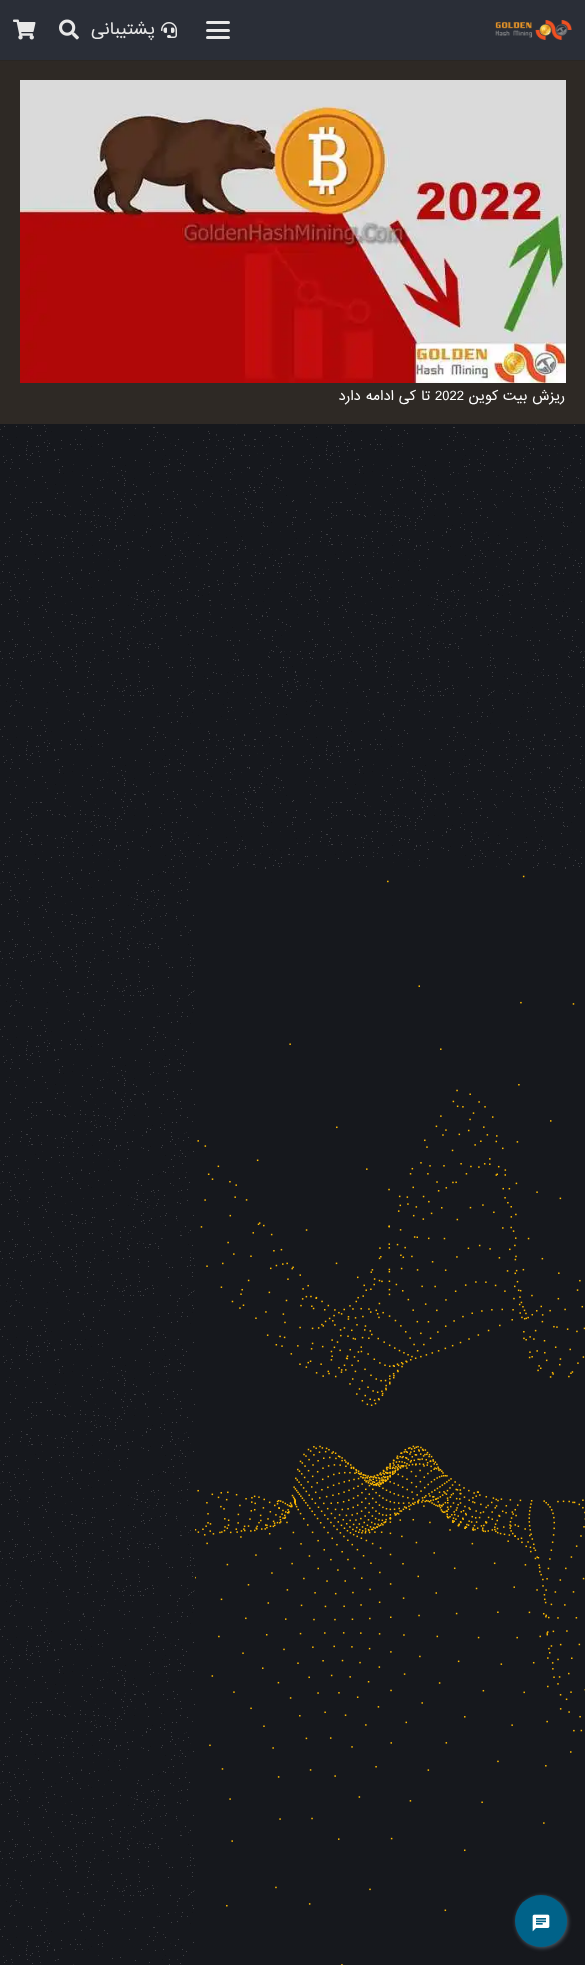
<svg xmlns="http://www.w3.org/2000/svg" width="585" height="1965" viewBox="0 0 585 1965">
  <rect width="100%" height="100%" fill="rgb(46,41,37)"/>
  <rect x="0" y="60" width="585" height="1" fill="rgb(42,38,34)"/>
  <rect x="0" y="0" width="585" height="60" fill="rgb(42,46,55)"/>
  <image x="495" y="20" width="77" height="20" href="pic1.png"/>
  <rect x="206" y="29" width="24" height="3" rx="1.5" fill="rgb(232,232,232)"/>
  <rect x="206" y="21" width="24" height="3" rx="1.5" fill="rgb(232,232,232)"/>
  <rect x="206" y="36" width="24" height="3" rx="1.5" fill="rgb(232,232,232)"/>
  <image x="161" y="22" width="16" height="16" href="pic2.png"/>
  <text x="155" y="34" font-family="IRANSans" font-size="16" direction="rtl" fill="rgb(232,232,232)">پشتیبانی</text>
  <image x="59" y="19" width="20" height="21" href="pic3.png"/>
  <image x="13" y="19" width="23" height="21" href="pic4.png"/>
  <image x="20" y="80" width="546" height="303" href="pic5.png"/>
  <text x="565" y="400" font-family="IRANSans" font-size="13" direction="rtl" fill="rgb(255,255,255)">ریزش بیت کوین</text>
  <text x="435" y="400" font-family="IRANSans" font-size="13" fill="rgb(255,255,255)">2022</text>
  <text x="430" y="400" font-family="IRANSans" font-size="13" direction="rtl" fill="rgb(255,255,255)">تا کی ادامه دارد</text>
  <rect x="0" y="424" width="585" height="1541" fill="rgb(22,24,29)"/>
  <image x="0" y="424" width="585" height="1541" href="pic6.png"/>
  <image x="195" y="869" width="390" height="1096" href="pic7.png"/>
  <rect x="516" y="1896" width="52" height="52" rx="26" fill="rgba(101,119,134,0.75)" filter="blur(2px)"/>
  <circle cx="541" cy="1921" r="26" fill="rgb(0,98,137)"/>
  <image x="532" y="1914" width="18" height="18" href="pic8.png"/>
</svg>
